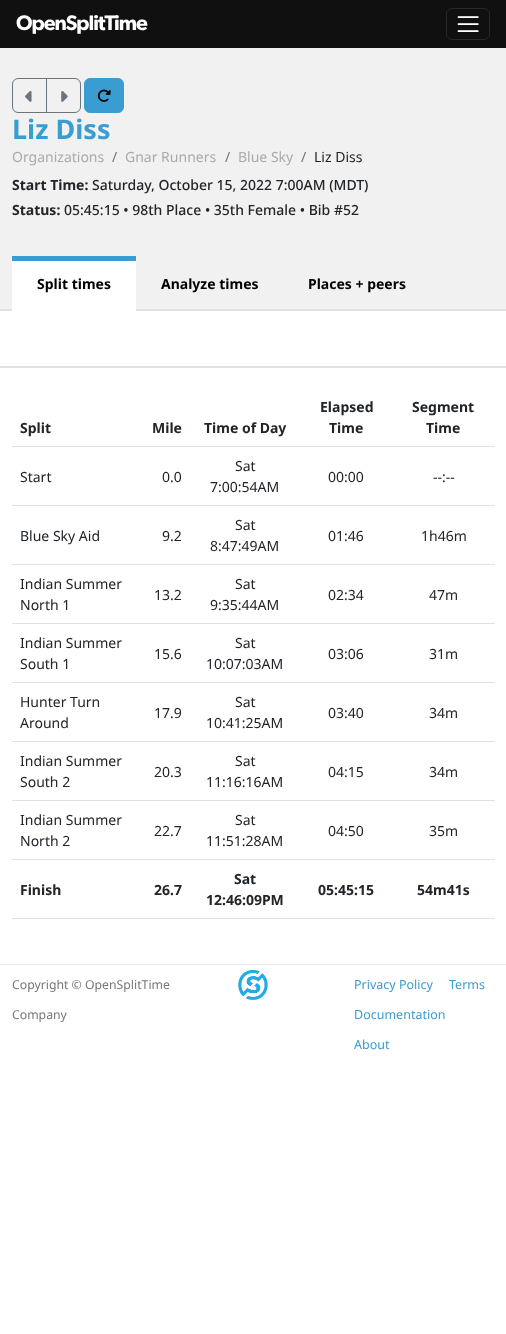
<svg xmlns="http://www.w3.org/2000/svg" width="506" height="1334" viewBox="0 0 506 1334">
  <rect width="100%" height="100%" fill="rgb(255,255,255)"/>
  <rect x="0" y="0" width="506" height="48" fill="rgb(16,16,16)"/>
  <text x="16" y="30" font-family="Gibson" font-size="21" font-weight="600" letter-spacing="-1" fill="rgb(255,255,255)">OpenSplitTime</text>
  <rect x="446.5" y="8.5" width="43" height="31" rx="5.5" fill="none" stroke="rgb(40,40,40)"/>
  <image x="457" y="16" width="22" height="16" href="pic1.png"/>
  <rect x="0" y="48" width="506" height="261" fill="rgb(241,241,241)"/>
  <rect x="0" y="309" width="506" height="2" fill="rgb(225,225,225)"/>
  <path d="M18 78.5H46.5V112.5H18C15 112.5 12.5 110 12.5 107V84C12.5 81 15 78.5 18 78.5Z" fill="none" stroke="rgb(108,117,125)"/>
  <image x="25" y="91" width="7" height="11" href="pic2.png"/>
  <path d="M46.5 78.5H75C78 78.5 80.5 81 80.5 84V107C80.5 110 78 112.5 75 112.5H46.5Z" fill="none" stroke="rgb(108,117,125)"/>
  <image x="61" y="91" width="7" height="11" href="pic3.png"/>
  <rect x="84.5" y="78.5" width="39" height="34" rx="5.5" fill="rgb(58,157,209)" stroke="rgb(58,157,209)"/>
  <image x="97" y="89" width="14" height="13" href="pic4.png"/>
  <text x="12" y="139" font-family="Noto Sans" font-size="27" font-weight="bold" fill="rgb(58,157,209)">Liz Diss</text>
  <text x="12" y="162" font-family="Noto Sans" font-size="14" fill="rgb(170,170,170)">Organizations</text>
  <text x="112" y="162" font-family="Noto Sans" font-size="14" fill="rgb(108,117,125)">/</text>
  <text x="125" y="162" font-family="Noto Sans" font-size="14" fill="rgb(170,170,170)">Gnar Runners</text>
  <text x="225" y="162" font-family="Noto Sans" font-size="14" fill="rgb(108,117,125)">/</text>
  <text x="238" y="162" font-family="Noto Sans" font-size="14" fill="rgb(170,170,170)">Blue Sky</text>
  <text x="301" y="162" font-family="Noto Sans" font-size="14" fill="rgb(108,117,125)">/</text>
  <text x="314" y="162" font-family="Noto Sans" font-size="14" fill="rgb(33,37,41)">Liz Diss</text>
  <text x="12" y="190" font-family="Noto Sans" font-size="14" font-weight="bold" fill="rgb(33,37,41)">Start Time:</text>
  <text x="92" y="190" font-family="Noto Sans" font-size="14" font-weight="500" fill="rgb(33,37,41)">Saturday, October 15, 2022 7:00AM (MDT)</text>
  <text x="12" y="215" font-family="Noto Sans" font-size="14" font-weight="bold" fill="rgb(33,37,41)">Status:</text>
  <text x="64" y="215" font-family="Noto Sans" font-size="14" font-weight="500" fill="rgb(33,37,41)">05:45:15 • 98th Place • 35th Female • Bib #52</text>
  <rect x="12" y="261" width="124" height="50" fill="rgb(255,255,255)"/>
  <rect x="12" y="256" width="124" height="5" fill="rgb(58,157,209)"/>
  <g font-family="Noto Sans" font-size="14" font-weight="bold" fill="rgb(0,0,0)">
    <text x="37" y="289">Split times</text>
    <text x="161" y="289">Analyze times</text>
    <text x="308" y="289">Places + peers</text>
  </g>
  <rect x="0" y="366" width="506" height="2" fill="rgb(225,225,225)"/>
  <g font-family="Noto Sans" font-size="14" font-weight="bold" fill="rgb(33,37,41)">
    <text x="20" y="433">Split</text>
    <text x="152" y="433">Mile</text>
    <text x="204" y="433">Time of Day</text>
    <text x="320" y="412">Elapsed</text>
    <text x="329" y="433">Time</text>
  </g>
  <rect x="12" y="446" width="483" height="1" fill="rgb(222,226,230)"/>
  <g font-family="Noto Sans" font-size="14" font-weight="bold" fill="rgb(33,37,41)">
    <text x="412" y="412">Segment</text>
    <text x="426" y="433">Time</text>
  </g>
  <g font-family="Noto Sans" font-size="14" fill="rgb(33,37,41)">
    <text x="20" y="482">Start</text>
    <text x="162" y="482">0.0</text>
    <text x="235" y="471">Sat</text>
    <text x="210" y="492">7:00:54AM</text>
    <text x="328" y="482">00:00</text>
  </g>
  <rect x="12" y="505" width="483" height="1" fill="rgb(222,226,230)"/>
  <g font-family="Noto Sans" font-size="14" fill="rgb(33,37,41)">
    <text x="433" y="482">--:--</text>
    <text x="20" y="541">Blue Sky Aid</text>
    <text x="162" y="541">9.2</text>
    <text x="235" y="530">Sat</text>
    <text x="210" y="551">8:47:49AM</text>
    <text x="328" y="541">01:46</text>
  </g>
  <rect x="12" y="564" width="483" height="1" fill="rgb(222,226,230)"/>
  <g font-family="Noto Sans" font-size="14" fill="rgb(33,37,41)">
    <text x="421" y="541">1h46m</text>
    <text>
      <tspan x="20" y="589">Indian Summer</tspan>
      <tspan x="20" y="610">North 1</tspan>
    </text>
    <text x="154" y="600">13.2</text>
    <text x="235" y="589">Sat</text>
    <text x="210" y="610">9:35:44AM</text>
    <text x="328" y="600">02:34</text>
  </g>
  <rect x="12" y="623" width="483" height="1" fill="rgb(222,226,230)"/>
  <g font-family="Noto Sans" font-size="14" fill="rgb(33,37,41)">
    <text x="429" y="600">47m</text>
    <text>
      <tspan x="20" y="648">Indian Summer</tspan>
      <tspan x="20" y="669">South 1</tspan>
    </text>
    <text x="154" y="659">15.6</text>
    <text x="235" y="648">Sat</text>
    <text x="206" y="669">10:07:03AM</text>
    <text x="328" y="659">03:06</text>
  </g>
  <rect x="12" y="682" width="483" height="1" fill="rgb(222,226,230)"/>
  <g font-family="Noto Sans" font-size="14" fill="rgb(33,37,41)">
    <text x="429" y="659">31m</text>
    <text>
      <tspan x="20" y="707">Hunter Turn</tspan>
      <tspan x="20" y="728">Around</tspan>
    </text>
    <text x="154" y="718">17.9</text>
    <text x="235" y="707">Sat</text>
    <text x="206" y="728">10:41:25AM</text>
    <text x="328" y="718">03:40</text>
  </g>
  <rect x="12" y="741" width="483" height="1" fill="rgb(222,226,230)"/>
  <g font-family="Noto Sans" font-size="14" fill="rgb(33,37,41)">
    <text x="429" y="718">34m</text>
    <text>
      <tspan x="20" y="766">Indian Summer</tspan>
      <tspan x="20" y="787">South 2</tspan>
    </text>
    <text x="154" y="777">20.3</text>
    <text x="235" y="766">Sat</text>
    <text x="206" y="787">11:16:16AM</text>
    <text x="328" y="777">04:15</text>
  </g>
  <rect x="12" y="800" width="483" height="1" fill="rgb(222,226,230)"/>
  <g font-family="Noto Sans" font-size="14" fill="rgb(33,37,41)">
    <text x="429" y="777">34m</text>
    <text>
      <tspan x="20" y="825">Indian Summer</tspan>
      <tspan x="20" y="846">North 2</tspan>
    </text>
    <text x="154" y="836">22.7</text>
    <text x="235" y="825">Sat</text>
    <text x="206" y="846">11:51:28AM</text>
    <text x="328" y="836">04:50</text>
  </g>
  <rect x="12" y="859" width="483" height="1" fill="rgb(222,226,230)"/>
  <text x="429" y="836" font-family="Noto Sans" font-size="14" fill="rgb(33,37,41)">35m</text>
  <g font-family="Noto Sans" font-size="14" font-weight="bold" fill="rgb(33,37,41)">
    <text x="20" y="895">Finish</text>
    <text x="154" y="895">26.7</text>
    <text x="234" y="884">Sat</text>
    <text x="206" y="905">12:46:09PM</text>
    <text x="318" y="895">05:45:15</text>
  </g>
  <rect x="12" y="918" width="483" height="1" fill="rgb(222,226,230)"/>
  <text x="417" y="895" font-family="Noto Sans" font-size="14" font-weight="bold" fill="rgb(33,37,41)">54m41s</text>
  <rect x="0" y="964" width="506" height="1" fill="rgb(234,234,234)"/>
  <g font-family="Noto Sans" font-size="12.25" fill="rgb(119,119,119)">
    <text x="12" y="989">Copyright © OpenSplitTime</text>
    <text x="12" y="1019">Company</text>
  </g>
  <image x="238" y="970" width="30" height="30" href="pic5.png"/>
  <g font-family="Noto Sans" font-size="12.5" fill="rgb(58,157,209)">
    <text x="354" y="989">Privacy Policy</text>
    <text x="449" y="989">Terms</text>
    <text x="354" y="1019">Documentation</text>
    <text x="354" y="1049">About</text>
  </g>
</svg>
